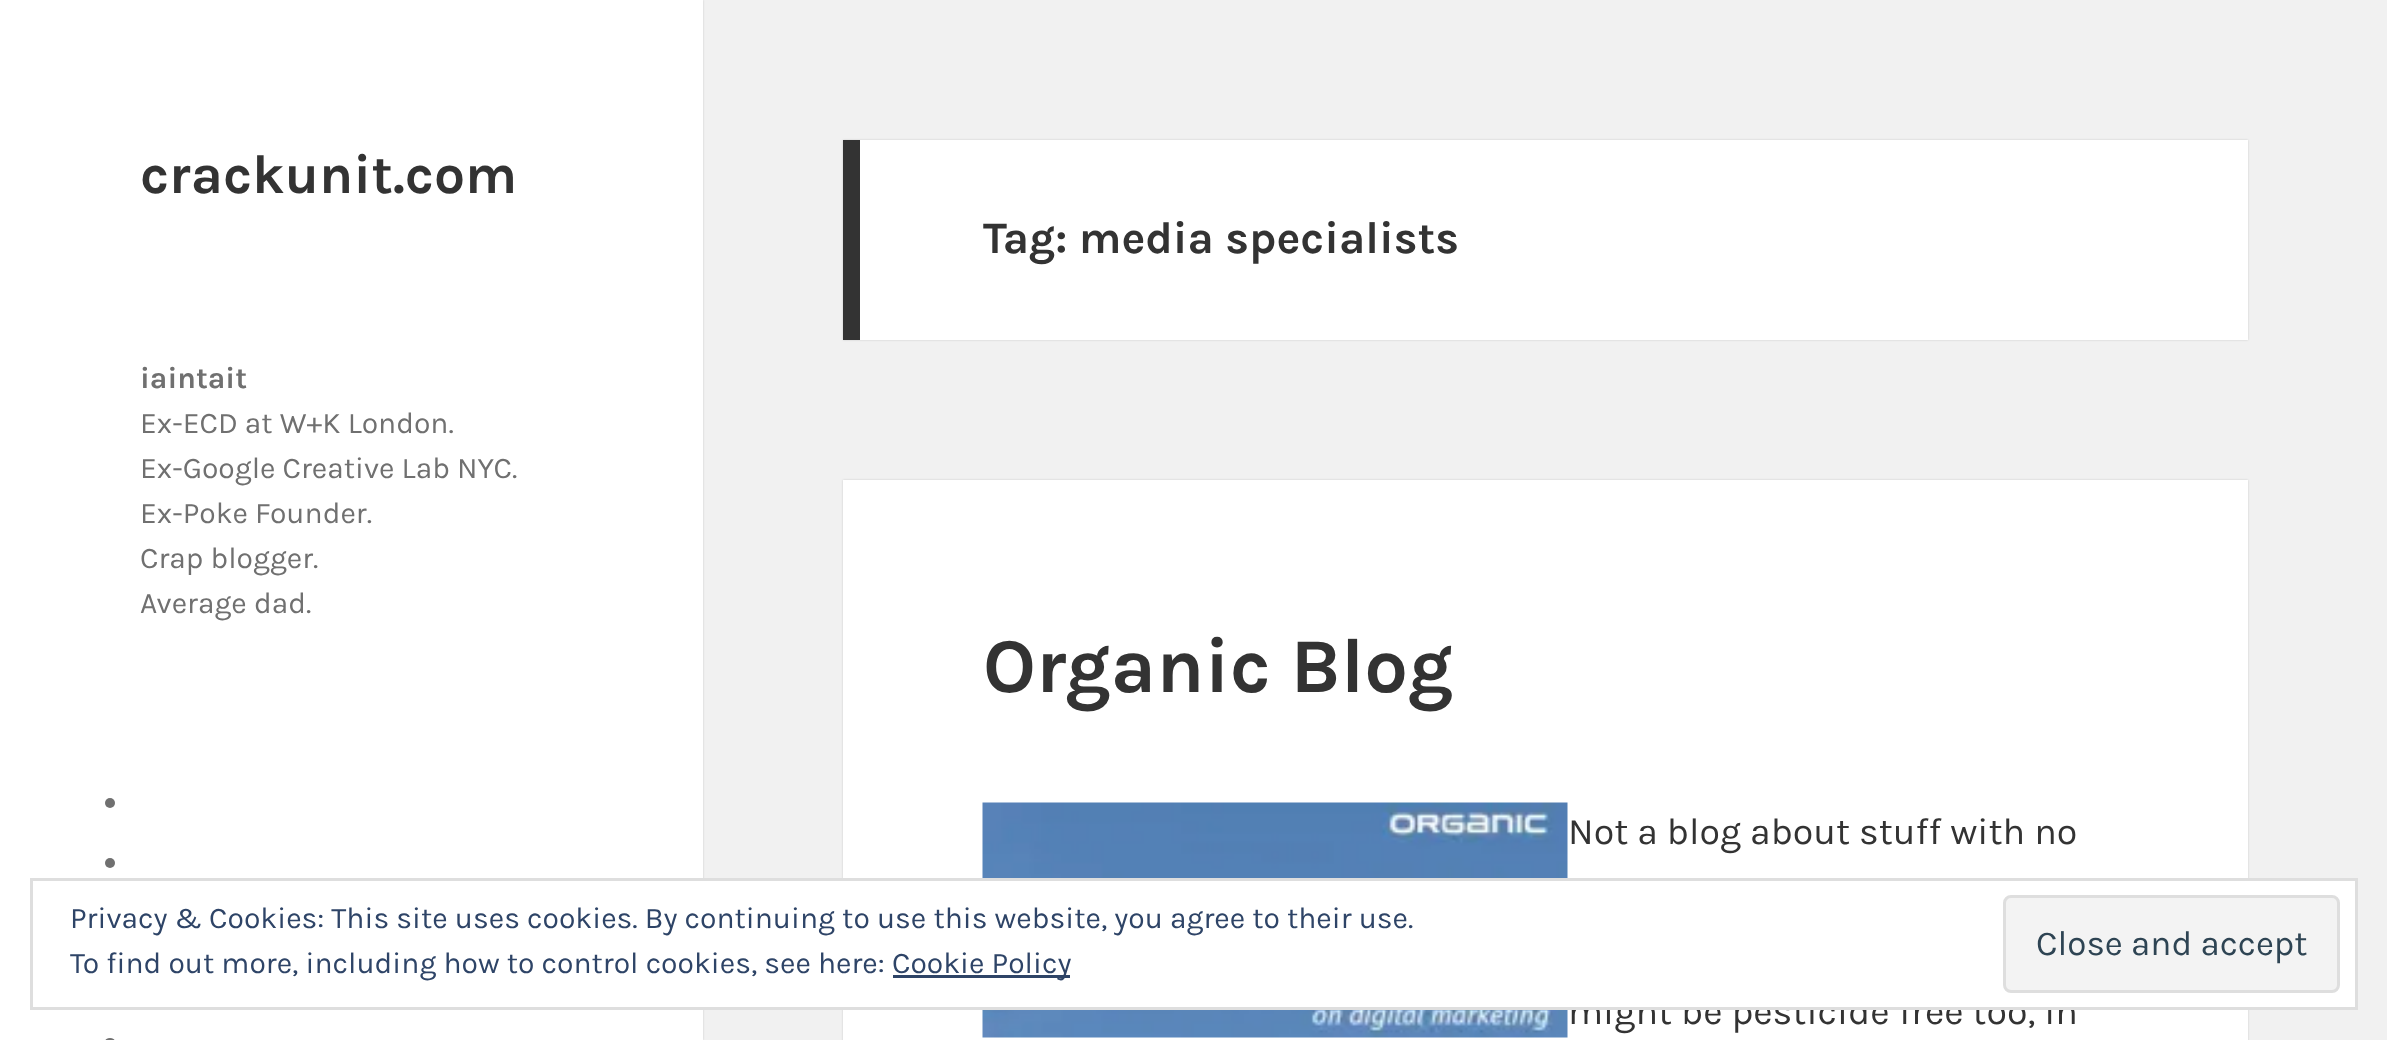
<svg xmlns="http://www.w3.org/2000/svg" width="2387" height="1040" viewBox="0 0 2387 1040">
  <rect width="100%" height="100%" fill="rgb(241,241,241)"/>
  <rect x="0" y="0" width="703" height="1040" fill="rgba(0,0,0,0.15)" filter="blur(1px)"/>
  <rect x="0" y="0" width="703" height="1040" fill="rgb(255,255,255)"/>
  <text x="140" y="193" font-family="Karla" font-size="55" font-weight="bold" fill="rgb(51,51,51)">crackunit.com</text>
  <text x="140" y="388" font-family="Karla" font-size="30" font-weight="bold" fill="rgb(112,112,112)">iaintait</text>
  <g font-family="Karla" font-size="30" fill="rgb(112,112,112)">
    <text>
      <tspan x="140" y="433">Ex-ECD at W+K London.</tspan>
      <tspan x="140" y="478">Ex-Google Creative Lab NYC.</tspan>
      <tspan x="140" y="523">Ex-Poke Founder.</tspan>
      <tspan x="140" y="568">Crap blogger.</tspan>
      <tspan x="140" y="613">Average dad.</tspan>
    </text>
  </g>
  <circle cx="110" cy="803" r="5" fill="rgb(112,112,112)"/>
  <circle cx="110" cy="863" r="5" fill="rgb(112,112,112)"/>
  <rect x="105" y="1038" width="10" height="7" rx="5" fill="rgb(112,112,112)"/>
  <rect x="843" y="140" width="1405" height="200" fill="rgba(0,0,0,0.15)" filter="blur(1px)"/>
  <rect x="860" y="140" width="1388" height="200" fill="rgb(255,255,255)"/>
  <rect x="843" y="140" width="17" height="200" fill="rgb(51,51,51)"/>
  <text x="983" y="253" font-family="Karla" font-size="45" font-weight="bold" fill="rgb(51,51,51)">Tag: media specialists</text>
  <rect x="843" y="480" width="1405" height="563" fill="rgba(0,0,0,0.15)" filter="blur(1px)"/>
  <rect x="843" y="480" width="1405" height="560" fill="rgb(255,255,255)"/>
  <text x="983" y="692" font-family="Karla" font-size="77.5" font-weight="bold" fill="rgb(51,51,51)">Organic Blog</text>
  <image x="982" y="802" width="586" height="236" href="pic1.png"/>
  <g font-family="Karla" font-size="37.5" fill="rgb(51,51,51)">
    <text x="1568" y="844">Not a blog about stuff with no</text>
    <text x="1568" y="1024">might be pesticide free too, in</text>
  </g>
  <rect x="703" y="881" width="1652" height="126" fill="rgb(255,255,255)"/>
  <rect x="31.5" y="879.5" width="2325" height="129" fill="none" stroke="rgb(222,222,222)" stroke-width="3"/>
  <g font-family="Karla" font-size="30" fill="rgb(46,68,103)">
    <text>
      <tspan x="70" y="928">Privacy &amp; Cookies: This site uses cookies. By continuing to use this website, you agree to their use.</tspan>
      <tspan x="70" y="973">To find out more, including how to control cookies, see here:</tspan>
    </text>
  </g>
  <rect x="893" y="975" width="177" height="3" fill="rgb(46,68,103)"/>
  <text x="892" y="973" font-family="Karla" font-size="30" fill="rgb(46,68,103)">Cookie Policy</text>
  <rect x="2004.5" y="896.5" width="334" height="95" rx="6.5" fill="rgb(243,243,243)" stroke="rgb(222,222,222)" stroke-width="3"/>
  <text x="2036" y="955" font-family="Karla" font-size="35" fill="rgb(46,68,83)">Close and accept</text>
</svg>
